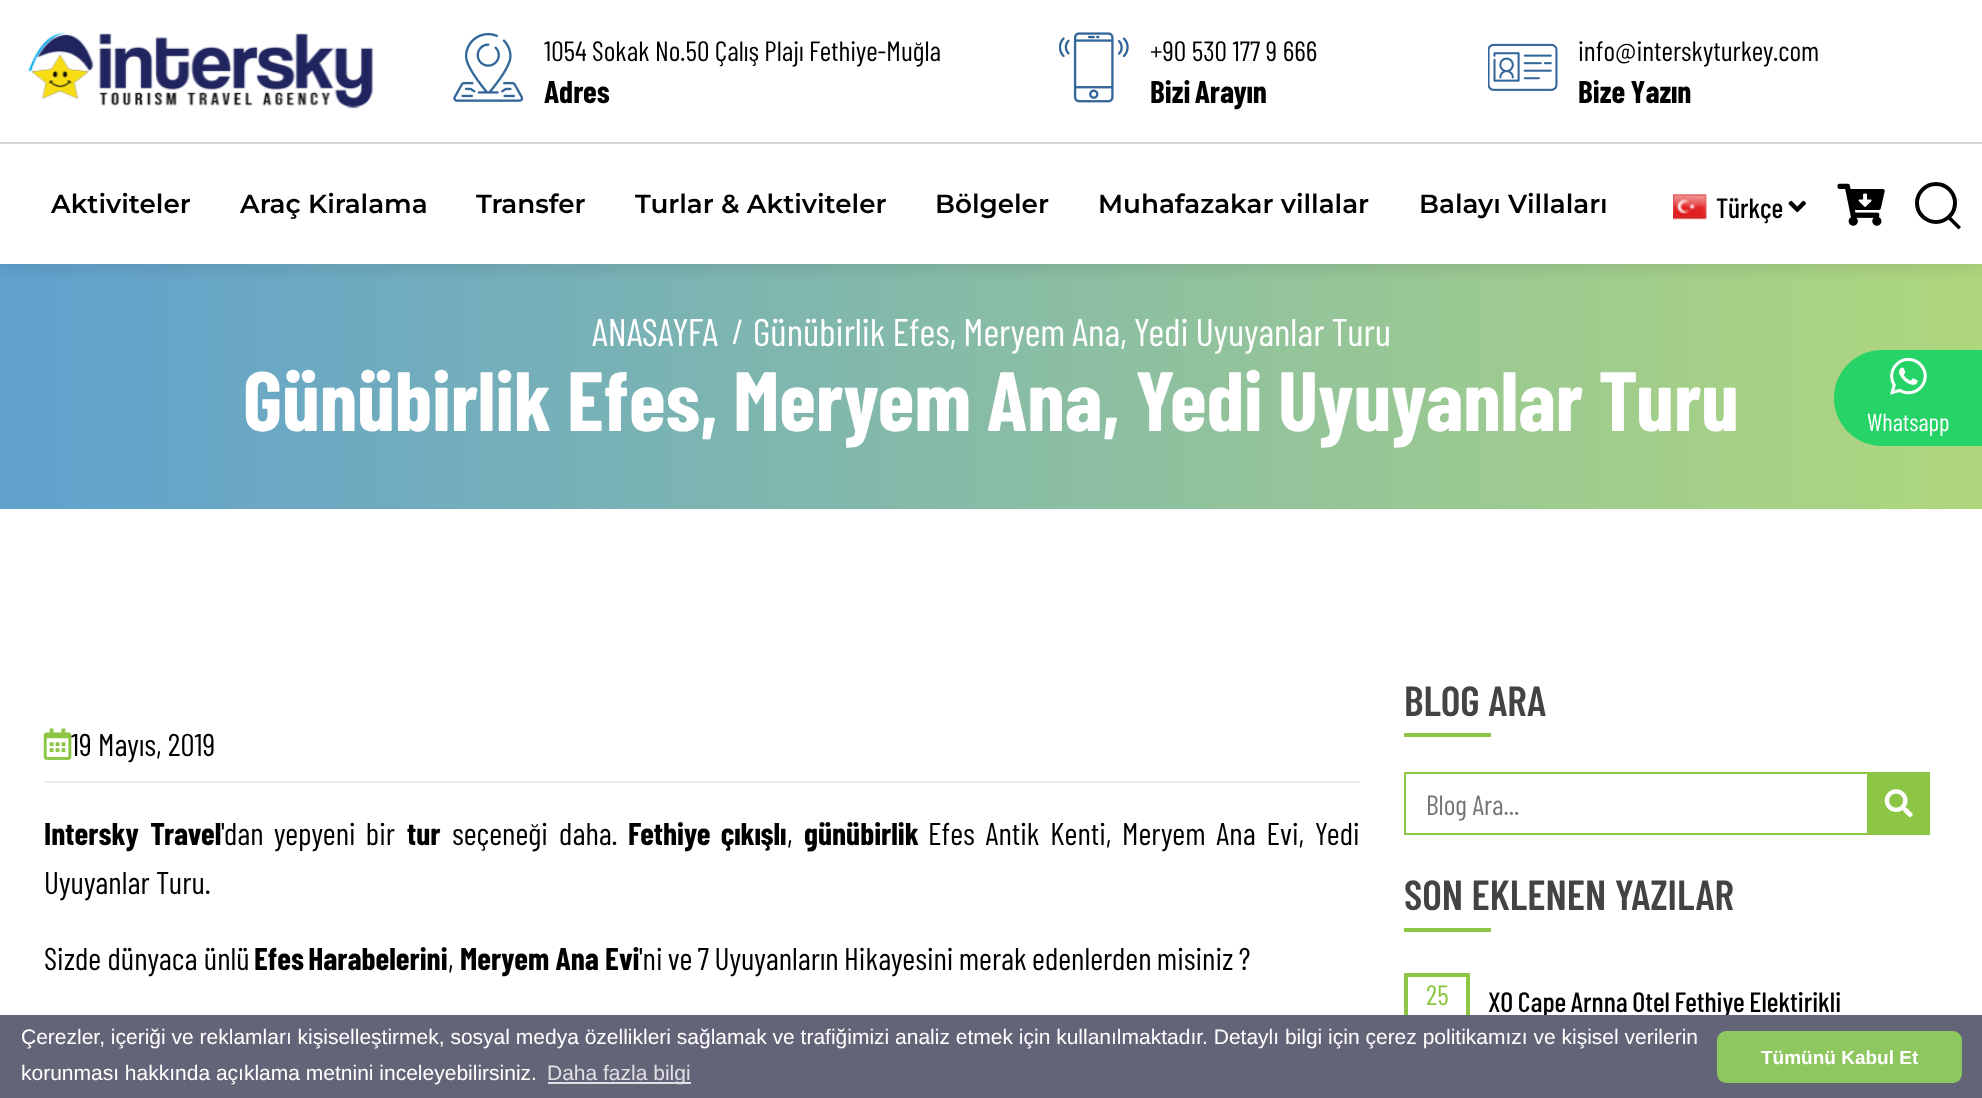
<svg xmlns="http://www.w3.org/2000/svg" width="1982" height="1098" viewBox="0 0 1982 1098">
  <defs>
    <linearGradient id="g1" gradientUnits="userSpaceOnUse" x1="0" y1="387" x2="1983" y2="387"><stop offset="0" stop-color="rgb(96,161,207)"/><stop offset="1" stop-color="rgb(175,215,125)"/></linearGradient>
    <clipPath id="clip1"><rect x="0" y="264" width="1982" height="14"/></clipPath>
  </defs>
  <rect width="100%" height="100%" fill="rgb(255,255,255)"/>
  <rect x="0" y="264" width="1982" height="245" fill="url(#g1)"/>
  <g clip-path="url(#clip1)">
    <rect x="0" y="0" width="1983" height="264" fill="rgba(24,24,24,0.15)" filter="blur(13px)"/>
  </g>
  <rect x="0" y="142" width="1982" height="2" fill="rgb(216,213,211)"/>
  <image x="28" y="32" width="346" height="77" href="pic1.png"/>
  <image x="453" y="32" width="70" height="70" href="pic2.png"/>
  <text x="544" y="61" word-spacing="-0.25" font-family="Barlow Condensed" font-size="28" fill="rgb(0,0,0)">1054 Sokak No.50 Çalış Plajı Fethiye-Muğla</text>
  <text x="544" y="103" font-family="Barlow Condensed" font-size="31.5" font-weight="bold" fill="rgb(0,0,0)">Adres</text>
  <image x="1059" y="32" width="70" height="71" href="pic3.png"/>
  <text x="1150" y="61" font-family="Barlow Condensed" font-size="28" fill="rgb(0,0,0)">+90 530 177 9 666</text>
  <text x="1150" y="103" word-spacing="-2" font-family="Barlow Condensed" font-size="31.5" font-weight="bold" fill="rgb(0,0,0)">Bizi Arayın</text>
  <image x="1488" y="43" width="70" height="48" href="pic4.png"/>
  <text x="1578" y="61" font-family="Barlow Condensed" font-size="28" fill="rgb(0,0,0)">info@interskyturkey.com</text>
  <text x="1578" y="103" word-spacing="-1" font-family="Barlow Condensed" font-size="31.5" font-weight="bold" fill="rgb(0,0,0)">Bize Yazın</text>
  <g font-family="Montserrat" font-size="26.25" font-weight="600" fill="rgb(0,0,0)">
    <text x="51" y="213">Aktiviteler</text>
    <text x="240" y="213">Araç Kiralama</text>
    <text x="476" y="213">Transfer</text>
    <text x="635" y="213">Turlar &amp; Aktiviteler</text>
    <text x="935" y="213">Bölgeler</text>
    <text x="1098" y="213">Muhafazakar villalar</text>
    <text x="1419" y="213">Balayı Villaları</text>
  </g>
  <image x="1673" y="194" width="34" height="26" href="pic5.png"/>
  <text x="1716" y="218" font-family="Barlow Condensed" font-size="28" font-weight="500" fill="rgb(0,0,0)">Türkçe</text>
  <image x="1788" y="200" width="18" height="13" href="pic6.png"/>
  <image x="1837" y="183" width="48" height="43" href="pic7.png"/>
  <circle cx="1936" cy="203" r="19" fill="none" stroke="rgb(0,0,0)" stroke-width="4"/>
  <path d="M1948.5 219.5L1951 217L1961 227L1958.5 229.5Z" fill="rgb(0,0,0)"/>
  <text x="592" y="346" font-family="Barlow Condensed" font-size="38.5" fill="rgb(255,255,255)">ANASAYFA</text>
  <text x="732" y="344" font-family="Barlow Condensed" font-size="35" fill="rgb(255,255,255)">/</text>
  <text x="753" y="346" word-spacing="-0.75" font-family="Barlow Condensed" font-size="38.5" fill="rgb(255,255,255)">Günübirlik Efes, Meryem Ana, Yedi Uyuyanlar Turu</text>
  <text x="243" y="431" word-spacing="-1.25" font-family="Barlow Condensed" font-size="84" font-weight="bold" fill="rgb(255,255,255)">Günübirlik Efes, Meryem Ana, Yedi Uyuyanlar Turu</text>
  <path d="M1882 350H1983V446H1882C1855.5 446 1834 424.5 1834 398C1834 371.5 1855.5 350 1882 350Z" fill="rgb(37,211,102)"/>
  <image x="1890" y="357" width="37" height="38" href="pic8.png"/>
  <text x="1867" y="431" font-family="Barlow Condensed" font-size="24.5" fill="rgb(255,255,255)">Whatsapp</text>
  <rect x="44" y="781" width="1316" height="2" fill="rgb(236,236,236)"/>
  <image x="43" y="728" width="29" height="32" href="pic9.png"/>
  <text x="71" y="756" font-family="Barlow Condensed" font-size="31.5" fill="rgb(0,0,0)">19 Mayıs, 2019</text>
  <text x="44" y="845" word-spacing="5" font-family="Barlow Condensed" font-size="31.5" font-weight="bold" fill="rgb(0,0,0)">Intersky Travel</text>
  <text x="221" y="845" word-spacing="4" font-family="Barlow Condensed" font-size="31.5" fill="rgb(0,0,0)">'dan yepyeni bir</text>
  <text x="407" y="845" font-family="Barlow Condensed" font-size="31.5" font-weight="bold" fill="rgb(0,0,0)">tur</text>
  <text x="452" y="845" word-spacing="5" font-family="Barlow Condensed" font-size="31.5" fill="rgb(0,0,0)">seçeneği daha.</text>
  <text x="628" y="845" word-spacing="4" font-family="Barlow Condensed" font-size="31.5" font-weight="bold" fill="rgb(0,0,0)">Fethiye çıkışlı</text>
  <text x="787" y="845" font-family="Barlow Condensed" font-size="31.5" fill="rgb(0,0,0)">,</text>
  <text x="804" y="845" font-family="Barlow Condensed" font-size="31.5" font-weight="bold" fill="rgb(0,0,0)">günübirlik</text>
  <g font-family="Barlow Condensed" font-size="31.5" fill="rgb(0,0,0)">
    <text x="928" y="845" word-spacing="4.5">Efes Antik Kenti, Meryem Ana Evi, Yedi</text>
    <text x="44" y="894">Uyuyanlar Turu.</text>
    <text x="44" y="970">Sizde dünyaca ünlü</text>
  </g>
  <text x="254" y="970" word-spacing="-2" font-family="Barlow Condensed" font-size="31.5" font-weight="bold" fill="rgb(0,0,0)">Efes Harabelerini</text>
  <text x="448" y="970" font-family="Barlow Condensed" font-size="31.5" fill="rgb(0,0,0)">,</text>
  <text x="460" y="970" font-family="Barlow Condensed" font-size="31.5" font-weight="bold" fill="rgb(0,0,0)">Meryem Ana Evi</text>
  <text x="639" y="970" word-spacing="-1" font-family="Barlow Condensed" font-size="31.5" fill="rgb(0,0,0)">'ni ve 7 Uyuyanların Hikayesini merak edenlerden misiniz ?</text>
  <text x="1404" y="716" font-family="Barlow Condensed" font-size="42" font-weight="600" fill="rgb(67,67,67)">BLOG ARA</text>
  <rect x="1404" y="733" width="87" height="4" fill="rgb(141,198,69)"/>
  <rect x="1405" y="773" width="524" height="61" fill="none" stroke="rgb(141,198,69)" stroke-width="2"/>
  <text x="1426" y="815" font-family="Barlow Condensed" font-size="28" fill="rgb(117,117,117)">Blog Ara...</text>
  <rect x="1867" y="774" width="61" height="59" fill="rgb(141,198,69)"/>
  <image x="1884" y="789" width="29" height="29" href="pic10.png"/>
  <text x="1404" y="910" font-family="Barlow Condensed" font-size="42" font-weight="600" fill="rgb(67,67,67)">SON EKLENEN YAZILAR</text>
  <rect x="1404" y="928" width="87" height="4" fill="rgb(141,198,69)"/>
  <rect x="1406" y="975" width="62" height="63" fill="none" stroke="rgb(141,198,69)" stroke-width="4"/>
  <text x="1426" y="1005" font-family="Barlow Condensed" font-size="28" fill="rgb(141,198,69)">25</text>
  <text x="1488" y="1012" word-spacing="-1" font-family="Barlow Condensed" font-size="28" font-weight="500" fill="rgb(0,0,0)">XO Cape Arnna Otel Fethiye Elektirikli</text>
  <rect x="0" y="1015" width="1982" height="83" fill="rgb(100,100,120)"/>
  <g font-family="Liberation Sans" font-size="21" fill="rgb(255,255,255)">
    <text>
      <tspan x="21" y="1044">Çerezler, içeriği ve reklamları kişiselleştirmek, sosyal medya özellikleri sağlamak ve trafiğimizi analiz etmek için kullanılmaktadır. Detaylı bilgi için çerez politikamızı ve kişisel verilerin</tspan>
      <tspan x="21" y="1080">korunması hakkında açıklama metnini inceleyebilirsiniz.</tspan>
    </text>
  </g>
  <rect x="548" y="1082" width="143" height="2" fill="rgb(224,224,228)"/>
  <text x="547" y="1080" font-family="Liberation Sans" font-size="21" fill="rgb(224,224,228)">Daha fazla bilgi</text>
  <rect x="1717" y="1031" width="245" height="52" rx="9" fill="rgb(142,199,96)"/>
  <text x="1761" y="1064" font-family="Liberation Sans" font-size="19" font-weight="bold" fill="rgb(255,255,255)">Tümünü Kabul Et</text>
</svg>
